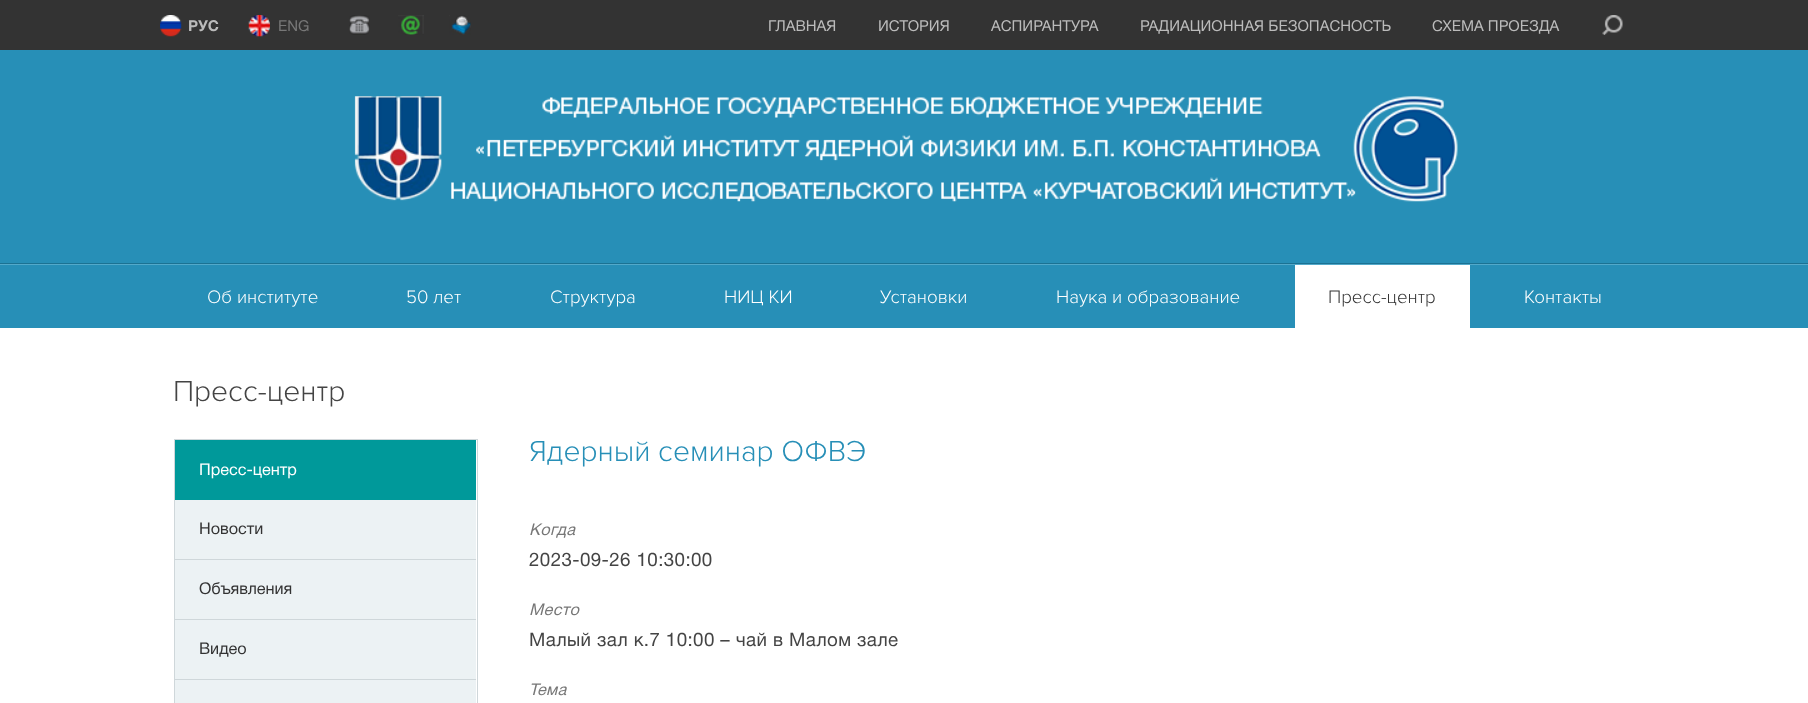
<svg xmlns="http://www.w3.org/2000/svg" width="1808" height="703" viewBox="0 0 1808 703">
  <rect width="100%" height="100%" fill="rgb(255,255,255)"/>
  <rect x="0" y="0" width="1808" height="50" fill="rgb(51,51,51)"/>
  <image x="160" y="15" width="22" height="22" href="pic1.png"/>
  <text x="188" y="31" font-family="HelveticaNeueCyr" font-size="15" font-weight="bold" fill="rgb(187,187,187)">РУС</text>
  <image x="248" y="15" width="22" height="22" href="pic2.png"/>
  <text x="278" y="31" font-family="HelveticaNeueCyr" font-size="15" fill="rgb(119,119,119)">ENG</text>
  <image x="349" y="15" width="21" height="20" href="pic3.png"/>
  <image x="398" y="15" width="26" height="20" href="pic4.png"/>
  <image x="449" y="15" width="22" height="20" href="pic5.png"/>
  <g font-family="HelveticaNeueCyr" font-size="15" fill="rgb(187,187,187)">
    <text x="768" y="31">ГЛАВНАЯ</text>
    <text x="878" y="31">ИСТОРИЯ</text>
    <text x="991" y="31">АСПИРАНТУРА</text>
    <text x="1140" y="31">РАДИАЦИОННАЯ БЕЗОПАСНОСТЬ</text>
    <text x="1432" y="31">СХЕМА ПРОЕЗДА</text>
  </g>
  <image x="1602" y="15" width="21" height="20" href="pic6.png"/>
  <rect x="0" y="50" width="1808" height="278" fill="rgb(39,143,183)"/>
  <rect x="0" y="263" width="1808" height="1" fill="rgb(27,114,147)"/>
  <image x="354" y="96" width="1104" height="106" href="pic7.png"/>
  <rect x="0" y="264" width="1808" height="1" fill="rgb(83,169,202)"/>
  <g font-family="Proxima Nova" font-size="18.75" font-weight="300" fill="rgb(255,255,255)">
    <text x="207" y="303">Об институте</text>
    <text x="406" y="303">50 лет</text>
    <text x="550" y="303">Структура</text>
    <text x="724" y="303">НИЦ КИ</text>
    <text x="880" y="303">Установки</text>
    <text x="1056" y="303">Наука и образование</text>
  </g>
  <rect x="1295" y="265" width="175" height="63" fill="rgb(255,255,255)"/>
  <text x="1328" y="303" font-family="Proxima Nova" font-size="18.75" font-weight="300" fill="rgb(51,51,51)">Пресс-центр</text>
  <text x="1524" y="303" font-family="Proxima Nova" font-size="18.75" font-weight="300" fill="rgb(255,255,255)">Контакты</text>
  <text x="173" y="401" font-family="Proxima Nova" font-size="30" font-weight="300" fill="rgb(68,68,68)">Пресс-центр</text>
  <rect x="174.5" y="439.5" width="303" height="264" fill="none" stroke="rgb(207,215,218)"/>
  <rect x="175" y="440" width="301" height="60" fill="rgb(0,153,154)"/>
  <text x="199" y="475" font-family="HelveticaNeueCyr" font-size="16.25" fill="rgb(255,255,255)">Пресс-центр</text>
  <rect x="175" y="500" width="301" height="59" fill="rgb(236,242,244)"/>
  <rect x="175" y="559" width="301" height="1" fill="rgb(207,215,218)"/>
  <text x="199" y="534" font-family="HelveticaNeueCyr" font-size="16.25" fill="rgb(51,51,51)">Новости</text>
  <rect x="175" y="560" width="301" height="59" fill="rgb(236,242,244)"/>
  <rect x="175" y="619" width="301" height="1" fill="rgb(207,215,218)"/>
  <text x="199" y="594" font-family="HelveticaNeueCyr" font-size="16.25" fill="rgb(51,51,51)">Объявления</text>
  <rect x="175" y="620" width="301" height="59" fill="rgb(236,242,244)"/>
  <rect x="175" y="679" width="301" height="1" fill="rgb(207,215,218)"/>
  <text x="199" y="654" font-family="HelveticaNeueCyr" font-size="16.25" fill="rgb(51,51,51)">Видео</text>
  <rect x="175" y="680" width="301" height="23" fill="rgb(236,242,244)"/>
  <text x="529" y="461" font-family="Proxima Nova" font-size="30" font-weight="300" fill="rgb(39,143,183)">Ядерный семинар ОФВЭ</text>
  <text x="529" y="535" font-family="HelveticaNeueCyr" font-size="16.25" font-style="italic" letter-spacing="0.4" fill="rgb(119,119,119)">Когда</text>
  <text x="529" y="566" font-family="HelveticaNeueCyr" font-size="18.75" letter-spacing="0.4" fill="rgb(68,68,68)">2023-09-26 10:30:00</text>
  <text x="529" y="615" font-family="HelveticaNeueCyr" font-size="16.25" font-style="italic" letter-spacing="0.4" fill="rgb(119,119,119)">Место</text>
  <text x="529" y="646" font-family="HelveticaNeueCyr" font-size="18.75" letter-spacing="0.4" fill="rgb(68,68,68)">Малый зал к.7 10:00 – чай в Малом зале</text>
  <text x="529" y="695" font-family="HelveticaNeueCyr" font-size="16.25" font-style="italic" letter-spacing="0.4" fill="rgb(119,119,119)">Тема</text>
</svg>
